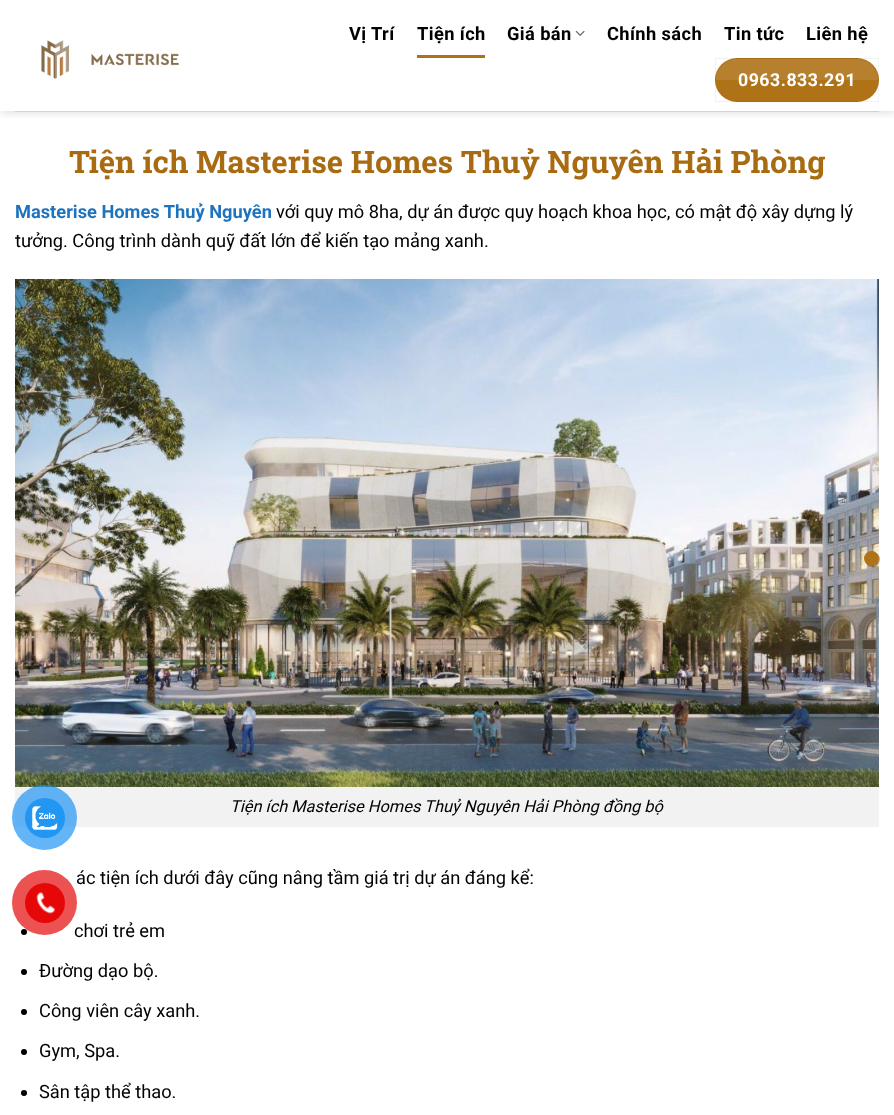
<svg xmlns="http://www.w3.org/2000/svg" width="894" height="1115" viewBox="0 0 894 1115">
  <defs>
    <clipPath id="clip1"><rect x="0" y="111" width="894" height="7"/></clipPath>
  </defs>
  <rect width="100%" height="100%" fill="rgb(255,255,255)"/>
  <g clip-path="url(#clip1)">
    <rect x="1" y="1" width="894" height="111" fill="rgba(0,0,0,0.15)" filter="blur(5px)"/>
  </g>
  <image x="41" y="40" width="138" height="39" href="pic1.png"/>
  <g font-family="Roboto" font-size="18.25" font-weight="bold" letter-spacing="0.4" fill="rgb(0,0,0)">
    <text x="349" y="40">Vị Trí</text>
    <text x="417" y="40">Tiện ích</text>
  </g>
  <rect x="417" y="55" width="68" height="3" fill="rgb(175,114,23)"/>
  <text x="507" y="40" font-family="Roboto" font-size="18.25" font-weight="bold" letter-spacing="0.4" fill="rgb(0,0,0)">Giá bán</text>
  <image x="575" y="30" width="10" height="6" href="pic2.png"/>
  <g font-family="Roboto" font-size="18.25" font-weight="bold" letter-spacing="0.4" fill="rgb(0,0,0)">
    <text x="607" y="40">Chính sách</text>
    <text x="724" y="40">Tin tức</text>
    <text x="806" y="40">Liên hệ</text>
  </g>
  <rect x="715" y="58" width="164" height="44" rx="22" fill="rgb(175,114,23)"/>
  <rect x="715.5" y="58.5" width="163" height="43" fill="none" stroke="rgba(0,0,0,0.05)"/>
  <path d="M737 59H857C868.5 59 878 68.5 878 80H716C716 68.5 725.5 59 737 59Z" fill="rgba(255,255,255,0.1)"/>
  <text x="738" y="86" font-family="Roboto" font-size="17.75" font-weight="bold" letter-spacing="0.5" fill="rgb(255,255,255)">0963.833.291</text>
  <rect x="15" y="111" width="864" height="1" fill="rgb(211,211,211)"/>
  <text x="69" y="173" font-family="Roboto Slab" font-size="31" font-weight="bold" fill="rgb(169,107,17)">Tiện ích Masterise Homes Thuỷ Nguyên Hải Phòng</text>
  <text x="15" y="218" font-family="Roboto" font-size="18.25" font-weight="bold" fill="rgb(30,115,190)">Masterise Homes Thuỷ Nguyên</text>
  <g font-family="Roboto" font-size="18.25" fill="rgb(0,0,0)">
    <text x="276" y="218">với quy mô 8ha, dự án được quy hoạch khoa học, có mật độ xây dựng lý</text>
    <text x="15" y="247">tưởng. Công trình dành quỹ đất lớn để kiến tạo mảng xanh.</text>
  </g>
  <image x="15" y="279" width="864" height="508" href="pic3.png"/>
  <rect x="15" y="787" width="864" height="40" fill="rgb(242,242,242)"/>
  <text x="230" y="812" font-family="Roboto" font-size="16.4" font-style="italic" fill="rgb(0,0,0)">Tiện ích Masterise Homes Thuỷ Nguyên Hải Phòng đồng bộ</text>
  <text x="76" y="884" font-family="Roboto" font-size="18.25" fill="rgb(0,0,0)">ác tiện ích dưới đây cũng nâng tầm giá trị dự án đáng kể:</text>
  <circle cx="24" cy="932" r="3" fill="rgb(0,0,0)"/>
  <text x="74" y="937" font-family="Roboto" font-size="18.25" fill="rgb(0,0,0)">chơi trẻ em</text>
  <circle cx="24" cy="972" r="3" fill="rgb(0,0,0)"/>
  <text x="39" y="977" font-family="Roboto" font-size="18.25" fill="rgb(0,0,0)">Đường dạo bộ.</text>
  <circle cx="24" cy="1012" r="3" fill="rgb(0,0,0)"/>
  <text x="39" y="1017" font-family="Roboto" font-size="18.25" fill="rgb(0,0,0)">Công viên cây xanh.</text>
  <circle cx="24" cy="1052" r="3" fill="rgb(0,0,0)"/>
  <text x="39" y="1057" font-family="Roboto" font-size="18.25" fill="rgb(0,0,0)">Gym, Spa.</text>
  <circle cx="24" cy="1093" r="3" fill="rgb(0,0,0)"/>
  <text x="39" y="1098" font-family="Roboto" font-size="18.25" fill="rgb(0,0,0)">Sân tập thể thao.</text>
  <rect x="865" y="552" width="15" height="15" rx="7.5" fill="rgba(0,0,0,0.3)" filter="blur(0.5px)"/>
  <circle cx="871.5" cy="558.5" r="7.5" fill="rgb(175,114,23)"/>
  <circle cx="44.5" cy="817.5" r="32.5" fill="rgba(33,150,243,0.7)"/>
  <circle cx="45" cy="818" r="20" fill="rgb(33,150,243)"/>
  <image x="32" y="806" width="26" height="24" href="pic4.png"/>
  <circle cx="44.5" cy="902.5" r="32.5" fill="rgba(230,8,8,0.7)"/>
  <circle cx="45" cy="903" r="20" fill="rgb(230,8,8)"/>
  <image x="36" y="892" width="19" height="22" href="pic5.png"/>
</svg>
